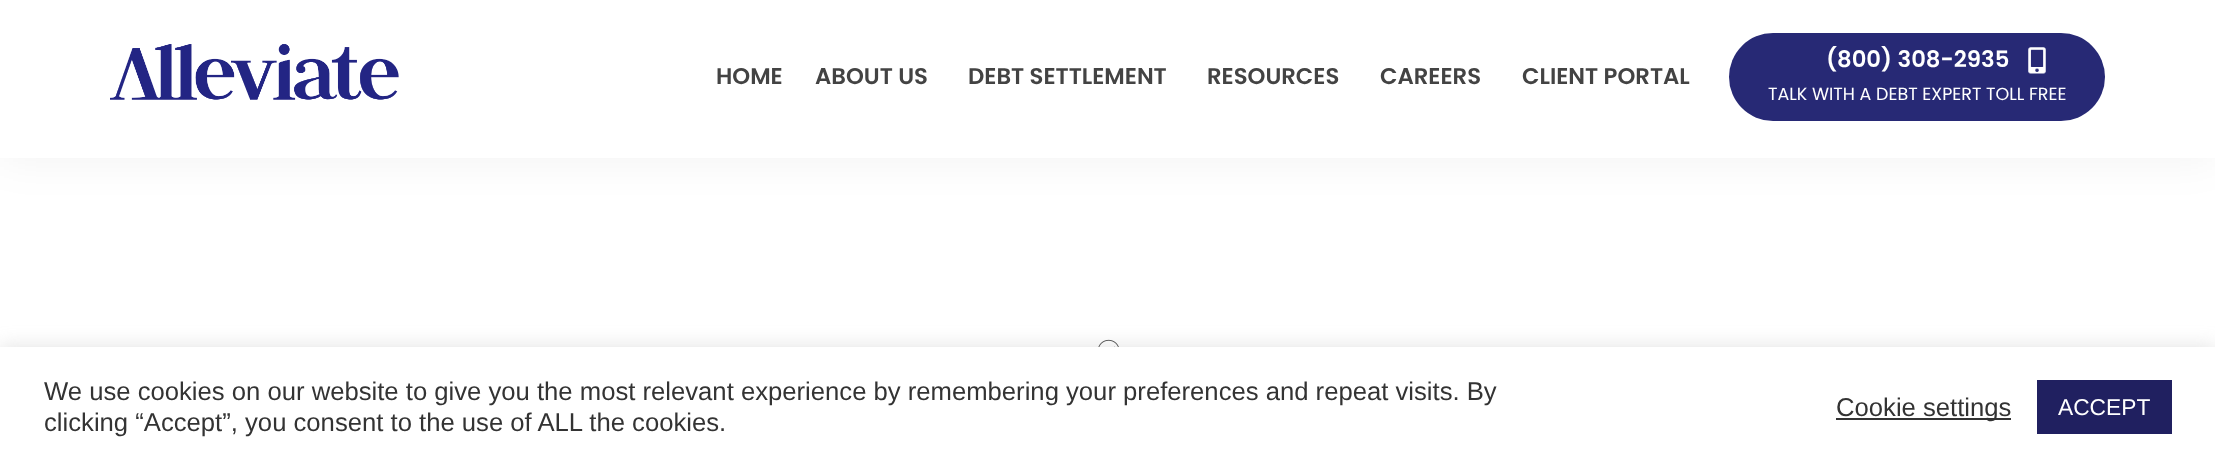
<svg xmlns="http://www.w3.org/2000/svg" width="2215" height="467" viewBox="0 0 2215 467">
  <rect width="100%" height="100%" fill="rgb(255,255,255)"/>
  <rect x="0" y="2" width="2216" height="157" fill="rgba(0,0,0,0.05)" filter="blur(22px)"/>
  <rect x="0" y="0" width="2215" height="158" fill="rgb(255,255,255)"/>
  <image x="110" y="44" width="289" height="56" href="pic1.png"/>
  <g font-family="Poppins" font-size="22.75" font-weight="600" fill="rgb(67,67,67)">
    <text x="716" y="84">HOME</text>
    <text x="815" y="84">ABOUT US</text>
    <text x="968" y="84">DEBT SETTLEMENT</text>
    <text x="1207" y="84">RESOURCES</text>
    <text x="1380" y="84">CAREERS</text>
    <text x="1522" y="84">CLIENT PORTAL</text>
  </g>
  <rect x="1729" y="33" width="376" height="88" rx="44" fill="rgb(39,41,117)"/>
  <image x="2028" y="47" width="18" height="27" href="pic2.png"/>
  <text x="1826" y="67" font-family="Poppins" font-size="22.75" font-weight="600" fill="rgb(255,255,255)">(800) 308-2935</text>
  <text x="1768" y="100" font-family="Poppins" font-size="17.5" fill="rgb(255,255,255)">TALK WITH A DEBT EXPERT TOLL FREE</text>
  <image x="1098" y="339" width="21" height="8" href="pic3.png"/>
  <rect x="0" y="345" width="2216" height="121" fill="rgba(172,171,171,0.3)" filter="blur(9px)"/>
  <rect x="0" y="347" width="2215" height="120" fill="rgb(255,255,255)"/>
  <g font-family="Liberation Sans" font-size="25.67" fill="rgb(51,51,51)">
    <text>
      <tspan x="44" y="400">We use cookies on our website to give you the most relevant experience by remembering your preferences and repeat visits. By</tspan>
      <tspan x="44" y="431">clicking “Accept”, you consent to the use of ALL the cookies.</tspan>
    </text>
  </g>
  <rect x="1836" y="418" width="175" height="2" fill="rgb(51,51,51)"/>
  <text x="1836" y="416" font-family="Liberation Sans" font-size="25.67" fill="rgb(51,51,51)">Cookie settings</text>
  <rect x="2037" y="380" width="135" height="54" fill="rgb(32,32,96)"/>
  <text x="2058" y="415" font-family="Liberation Sans" font-size="22.75" fill="rgb(255,255,255)">ACCEPT</text>
</svg>
